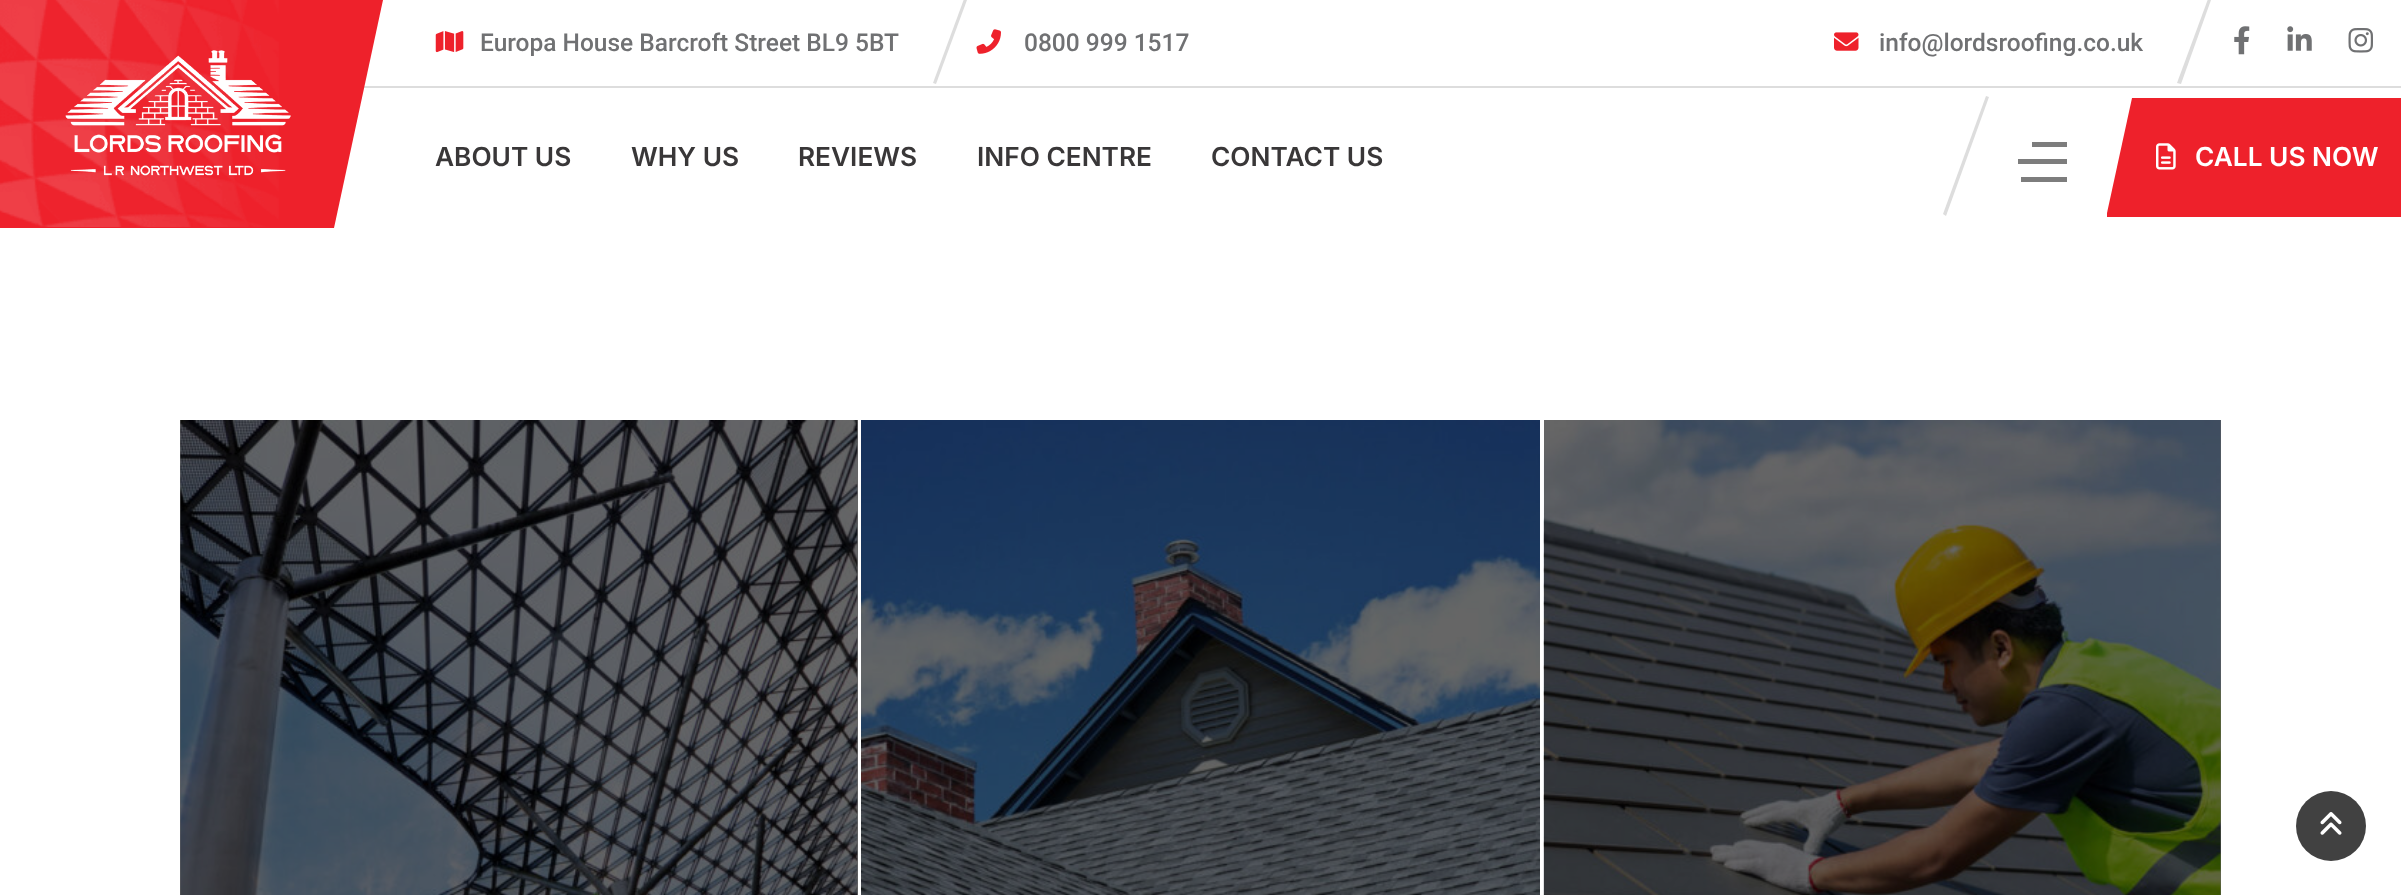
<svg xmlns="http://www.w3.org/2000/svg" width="2401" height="895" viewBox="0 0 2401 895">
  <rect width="100%" height="100%" fill="rgb(255,255,255)"/>
  <rect x="2220" y="420" width="1" height="475" fill="rgb(102,102,102)"/>
  <rect x="180" y="420" width="678" height="475" fill="rgb(102,102,102)"/>
  <rect x="357" y="86" width="2044" height="2" fill="rgb(221,221,221)"/>
  <path d="M-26 0V228H334L383 0Z" fill="rgb(238,33,43)"/>
  <image x="0" y="0" width="279" height="227" href="pic1.png"/>
  <image x="65" y="50" width="226" height="126" href="pic2.png"/>
  <image x="435" y="31" width="29" height="22" href="pic3.png"/>
  <text x="480" y="51" font-family="Roboto" font-size="24.5" font-weight="500" fill="rgb(112,113,115)">Europa House Barcroft Street BL9 5BT</text>
  <path d="M964-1L967 0L936 84L933 83Z" fill="rgb(221,221,221)"/>
  <image x="976" y="29" width="25" height="25" href="pic4.png"/>
  <text x="1024" y="51" font-family="Roboto" font-size="24.5" font-weight="500" fill="rgb(112,113,115)">0800 999 1517</text>
  <image x="1834" y="32" width="25" height="19" href="pic5.png"/>
  <text x="1879" y="51" font-family="Roboto" font-size="24.5" font-weight="500" fill="rgb(112,113,115)">info@lordsroofing.co.uk</text>
  <path d="M2208-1L2211 0L2181 84L2177 83Z" fill="rgb(221,221,221)"/>
  <image x="2234" y="26" width="16" height="29" href="pic6.png"/>
  <image x="2287" y="26" width="25" height="25" href="pic7.png"/>
  <image x="2348" y="28" width="25" height="25" href="pic8.png"/>
  <g font-family="Inter" font-size="26.25" font-weight="600" fill="rgb(57,55,56)">
    <text x="435" y="166">ABOUT US</text>
    <text x="631" y="166">WHY US</text>
    <text x="798" y="166">REVIEWS</text>
    <text x="977" y="166">INFO CENTRE</text>
    <text x="1211" y="166">CONTACT US</text>
  </g>
  <path d="M1986 96L1989 97L1946 216L1943 214Z" fill="rgb(221,221,221)"/>
  <rect x="2032" y="142" width="35" height="5" fill="rgb(125,125,125)"/>
  <rect x="2018" y="159" width="49" height="5" fill="rgb(125,125,125)"/>
  <rect x="2021" y="177" width="46" height="5" fill="rgb(125,125,125)"/>
  <path d="M2132 98L2107 213V217H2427V98Z" fill="rgb(238,33,43)"/>
  <image x="2156" y="143" width="20" height="27" href="pic9.png"/>
  <text x="2195" y="166" font-family="Inter" font-size="26.25" font-weight="600" fill="rgb(255,255,255)">CALL US NOW</text>
  <image x="180" y="420" width="678" height="475" href="pic10.png"/>
  <image x="861" y="420" width="679" height="475" href="pic11.png"/>
  <image x="1543" y="420" width="678" height="475" href="pic12.png"/>
  <circle cx="2331" cy="826" r="35" fill="rgb(65,65,65)"/>
  <image x="2320" y="812" width="22" height="23" href="pic13.png"/>
</svg>
